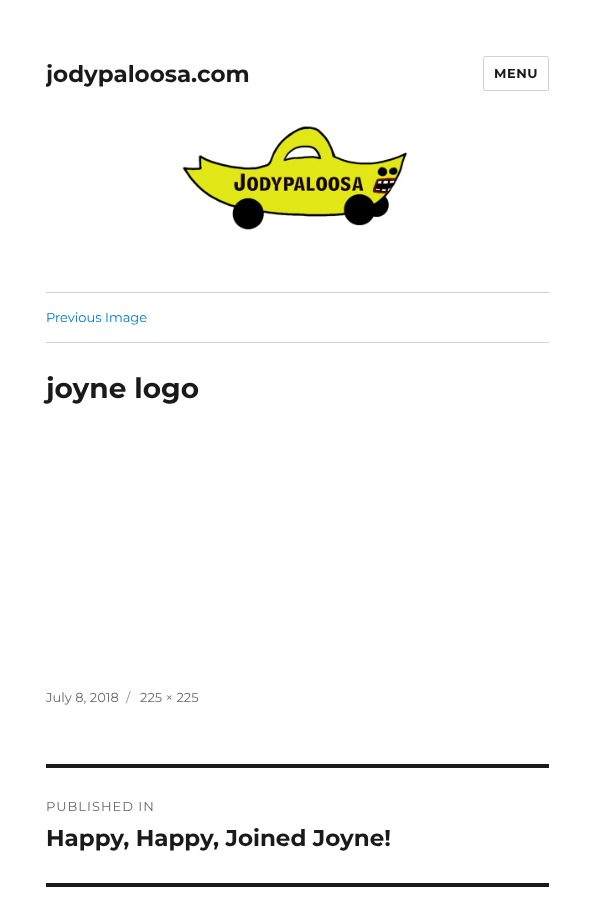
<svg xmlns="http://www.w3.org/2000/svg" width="595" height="901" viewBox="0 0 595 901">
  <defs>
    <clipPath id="clip1"><rect x="46" y="60" width="203" height="28"/></clipPath>
  </defs>
  <rect width="100%" height="100%" fill="rgb(255,255,255)"/>
  <g clip-path="url(#clip1)">
    <text x="46" y="82" font-family="Montserrat" font-size="23" font-weight="100" fill="rgb(26,26,26)">jodypaloosa.com</text>
  </g>
  <rect x="483.5" y="56.5" width="65" height="34" rx="1.5" fill="none" stroke="rgb(209,209,209)"/>
  <text x="494" y="78" font-family="Montserrat" font-size="13" font-weight="100" letter-spacing="0.5" fill="rgb(26,26,26)">MENU</text>
  <image x="182" y="126" width="226" height="104" href="pic1.png"/>
  <rect x="46" y="292" width="503" height="1" fill="rgb(209,209,209)"/>
  <rect x="46" y="342" width="503" height="1" fill="rgb(209,209,209)"/>
  <text x="46" y="322" font-family="'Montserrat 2'" font-size="13" font-weight="100" fill="rgb(0,122,204)">Previous Image</text>
  <text x="46" y="398" font-family="Montserrat" font-size="28" font-weight="100" fill="rgb(26,26,26)">joyne logo</text>
  <text x="46" y="702" font-family="'Montserrat 2'" font-size="13" font-weight="100" fill="rgb(104,104,104)">July 8, 2018</text>
  <text x="126" y="702" font-family="'Montserrat 2'" font-size="13" font-weight="100" fill="rgb(149,149,149)">/</text>
  <text x="140" y="702" font-family="'Montserrat 2'" font-size="13" font-weight="100" fill="rgb(104,104,104)">225 × 225</text>
  <rect x="46" y="764" width="503" height="4" fill="rgb(26,26,26)"/>
  <rect x="46" y="883" width="503" height="4" fill="rgb(26,26,26)"/>
  <text x="46" y="811" font-family="'Montserrat 2'" font-size="13" font-weight="100" letter-spacing="1" fill="rgb(104,104,104)">PUBLISHED IN</text>
  <text x="46" y="846" font-family="Montserrat" font-size="23" font-weight="100" fill="rgb(26,26,26)">Happy, Happy, Joined Joyne!</text>
</svg>
